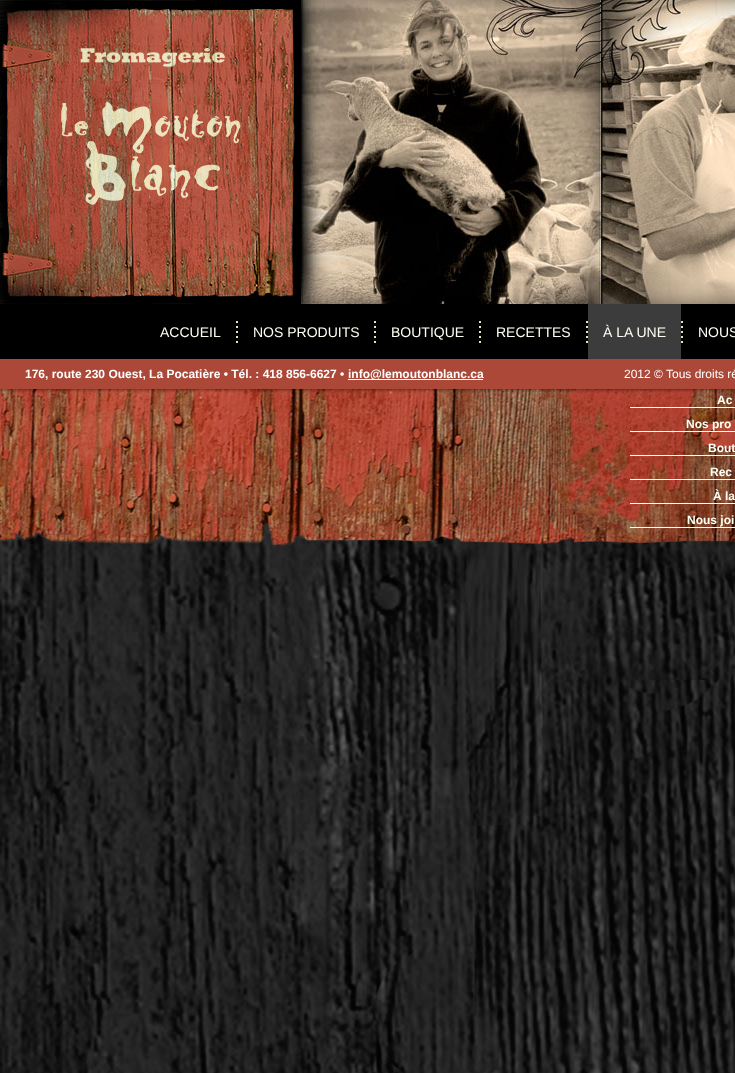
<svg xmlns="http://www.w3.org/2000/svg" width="735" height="1073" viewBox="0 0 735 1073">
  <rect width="100%" height="100%" fill="rgb(255,255,255)"/>
  <image x="0" y="0" width="735" height="1073" href="pic1.png"/>
  <image x="0" y="0" width="301" height="304" href="pic2.png"/>
  <image x="301" y="0" width="299" height="304" href="pic3.png"/>
  <image x="600" y="0" width="135" height="304" href="pic4.png"/>
  <rect x="0" y="304" width="735" height="55" fill="rgb(0,0,0)"/>
  <text x="160" y="337" font-family="Liberation Sans" font-size="14" fill="rgb(255,255,243)">ACCUEIL</text>
  <image x="236" y="321" width="2" height="22" href="pic5.png"/>
  <text x="253" y="337" font-family="Liberation Sans" font-size="14" fill="rgb(255,255,243)">NOS PRODUITS</text>
  <image x="374" y="321" width="2" height="22" href="pic5.png"/>
  <text x="391" y="337" font-family="Liberation Sans" font-size="14" fill="rgb(255,255,243)">BOUTIQUE</text>
  <image x="479" y="321" width="2" height="22" href="pic5.png"/>
  <text x="496" y="337" font-family="Liberation Sans" font-size="14" fill="rgb(255,255,243)">RECETTES</text>
  <image x="586" y="321" width="2" height="22" href="pic5.png"/>
  <rect x="588" y="304" width="93" height="55" fill="rgb(60,60,60)"/>
  <text x="603" y="337" font-family="Liberation Sans" font-size="14" fill="rgb(255,255,243)">À LA UNE</text>
  <image x="681" y="321" width="2" height="22" href="pic5.png"/>
  <text x="698" y="337" font-family="Liberation Sans" font-size="14" fill="rgb(255,255,243)">NOUS</text>
  <image x="0" y="359" width="735" height="187" href="pic6.png"/>
  <text x="25" y="378" font-family="Liberation Sans" font-size="12" font-weight="bold" fill="rgb(255,255,255)">176, route 230 Ouest, La Pocatière • Tél. : 418 856-6627 •</text>
  <rect x="348" y="379" width="135" height="1" fill="rgb(255,255,255)"/>
  <text x="348" y="378" font-family="Liberation Sans" font-size="12" font-weight="bold" fill="rgb(255,255,255)">info@lemoutonblanc.ca</text>
  <text x="624" y="378" font-family="Liberation Sans" font-size="12" fill="rgb(255,255,255)">2012 © Tous droits ré</text>
  <rect x="630" y="407" width="105" height="1" fill="rgb(255,255,255)"/>
  <text x="717" y="404" font-family="Liberation Sans" font-size="12" font-weight="bold" fill="rgb(255,255,243)">Ac</text>
  <rect x="630" y="431" width="105" height="1" fill="rgb(255,255,255)"/>
  <text x="686" y="428" font-family="Liberation Sans" font-size="12" font-weight="bold" fill="rgb(255,255,243)">Nos pro</text>
  <rect x="630" y="455" width="105" height="1" fill="rgb(255,255,255)"/>
  <text x="708" y="452" font-family="Liberation Sans" font-size="12" font-weight="bold" fill="rgb(255,255,243)">Bout</text>
  <rect x="630" y="479" width="105" height="1" fill="rgb(255,255,255)"/>
  <text x="710" y="476" font-family="Liberation Sans" font-size="12" font-weight="bold" fill="rgb(255,255,243)">Rec</text>
  <rect x="630" y="503" width="105" height="1" fill="rgb(255,255,255)"/>
  <text x="713" y="500" font-family="Liberation Sans" font-size="12" font-weight="bold" fill="rgb(255,255,243)">À la</text>
  <rect x="630" y="527" width="105" height="1" fill="rgb(255,255,255)"/>
  <text x="687" y="524" font-family="Liberation Sans" font-size="12" font-weight="bold" fill="rgb(255,255,243)">Nous joi</text>
</svg>
